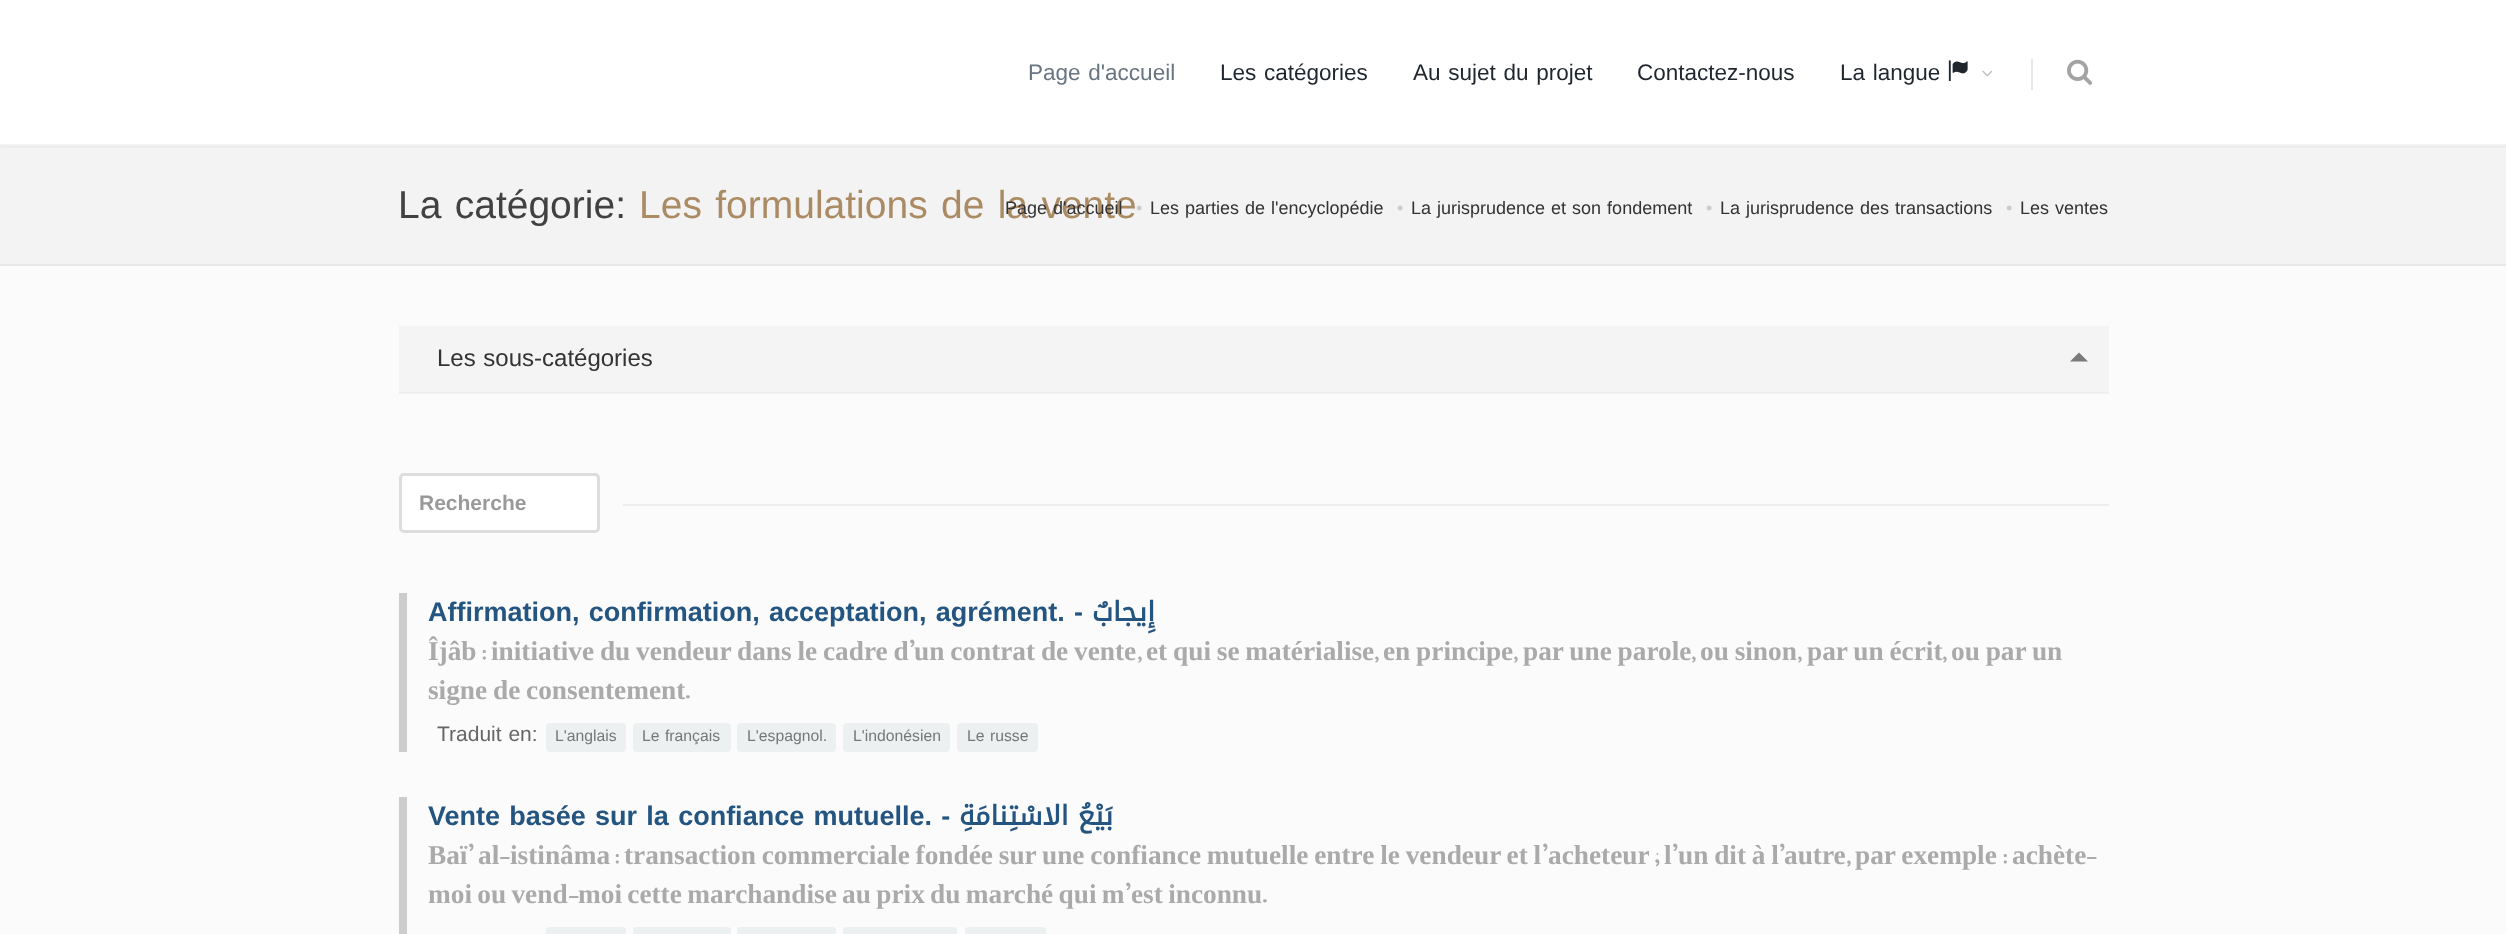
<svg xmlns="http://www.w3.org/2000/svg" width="2506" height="934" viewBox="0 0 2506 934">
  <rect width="100%" height="100%" fill="rgb(243,243,243)"/>
  <rect x="0" y="0" width="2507" height="146" fill="rgba(0,0,0,0.1)" filter="blur(1.5px)"/>
  <rect x="0" y="0" width="2506" height="144" fill="rgb(255,255,255)"/>
  <rect x="0" y="144" width="2506" height="2" fill="rgb(242,242,242)"/>
  <text x="1028" y="80" word-spacing="1.5" font-family="Liberation Sans" font-size="22.5" fill="rgb(104,116,130)">Page d'accueil</text>
  <g font-family="Liberation Sans" font-size="22.5" fill="rgb(31,38,45)">
    <text x="1220" y="80" word-spacing="1.5">Les catégories</text>
    <text x="1413" y="80" word-spacing="1.5">Au sujet du projet</text>
    <text x="1637" y="80">Contactez-nous</text>
    <text x="1840" y="80" word-spacing="1.5">La langue</text>
  </g>
  <image x="1948" y="60" width="20" height="21" href="pic1.png"/>
  <image x="1982" y="70" width="11" height="7" href="pic2.png"/>
  <rect x="2031" y="59" width="2" height="31" fill="rgb(230,230,230)"/>
  <image x="2067" y="59" width="25" height="26" href="pic3.png"/>
  <rect x="0" y="264" width="2506" height="2" fill="rgb(231,231,231)"/>
  <text x="398" y="218" word-spacing="2.5" font-family="Liberation Sans" font-size="39" fill="rgb(65,65,65)">La catégorie:</text>
  <text x="639" y="218" word-spacing="2.5" font-family="Liberation Sans" font-size="39" fill="rgb(171,139,100)">Les formulations de la vente</text>
  <text x="1005" y="214" word-spacing="1" font-family="Liberation Sans" font-size="18" fill="rgb(51,51,51)">Page d'accueil</text>
  <text x="1136" y="214" font-family="Liberation Sans" font-size="18" fill="rgb(204,204,204)">•</text>
  <text x="1150" y="214" word-spacing="1" font-family="Liberation Sans" font-size="18" fill="rgb(51,51,51)">Les parties de l'encyclopédie</text>
  <text x="1397" y="214" font-family="Liberation Sans" font-size="18" fill="rgb(204,204,204)">•</text>
  <text x="1411" y="214" word-spacing="1" font-family="Liberation Sans" font-size="18" fill="rgb(51,51,51)">La jurisprudence et son fondement</text>
  <text x="1706" y="214" font-family="Liberation Sans" font-size="18" fill="rgb(204,204,204)">•</text>
  <text x="1720" y="214" word-spacing="1" font-family="Liberation Sans" font-size="18" fill="rgb(51,51,51)">La jurisprudence des transactions</text>
  <text x="2006" y="214" font-family="Liberation Sans" font-size="18" fill="rgb(204,204,204)">•</text>
  <text x="2020" y="214" word-spacing="1" font-family="Liberation Sans" font-size="18" fill="rgb(51,51,51)">Les ventes</text>
  <rect x="0" y="266" width="2506" height="668" fill="rgb(251,251,251)"/>
  <rect x="399" y="393" width="1710" height="1" fill="rgb(243,243,243)"/>
  <rect x="399" y="326" width="1710" height="66" fill="rgb(244,244,244)"/>
  <rect x="399" y="392" width="1710" height="1" fill="rgb(237,237,237)"/>
  <text x="437" y="366" word-spacing="1" font-family="Liberation Sans" font-size="24" fill="rgb(51,51,51)">Les sous-catégories</text>
  <path d="M2088 361.5H2070L2079 352.5Z" fill="rgb(122,122,122)"/>
  <rect x="400.5" y="474.5" width="198" height="57" rx="3.5" fill="rgb(255,255,255)" stroke="rgb(221,221,221)" stroke-width="3"/>
  <text x="419" y="510" font-family="Liberation Sans" font-size="21" font-weight="bold" fill="rgb(153,153,153)">Recherche</text>
  <rect x="623" y="504" width="1486" height="2" fill="rgb(238,238,238)"/>
  <rect x="399" y="593" width="8" height="159" fill="rgb(204,204,204)"/>
  <text x="428" y="621" word-spacing="1.75" font-family="Liberation Sans" font-size="27" font-weight="bold" fill="rgb(36,85,128)">Affirmation, confirmation, acceptation, agrément. -</text>
  <text x="1155" y="621" font-family="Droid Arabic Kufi" font-size="27" font-weight="bold" direction="rtl" fill="rgb(36,85,128)">إِيجابٌ</text>
  <text x="428" y="660" font-family="Liberation Serif" font-size="27.3" font-weight="bold" fill="rgb(170,170,170)">Îjâb</text>
  <text x="481" y="660" font-family="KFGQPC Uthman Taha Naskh" font-size="27.3" font-weight="bold" fill="rgb(170,170,170)">:</text>
  <text x="491" y="660" word-spacing="-1" font-family="Liberation Serif" font-size="27.3" font-weight="bold" fill="rgb(170,170,170)">initiative du vendeur dans le cadre d</text>
  <text x="909" y="660" font-family="KFGQPC Uthman Taha Naskh" font-size="27.3" font-weight="bold" fill="rgb(170,170,170)">’</text>
  <text x="914" y="660" word-spacing="-1" font-family="Liberation Serif" font-size="27.3" font-weight="bold" fill="rgb(170,170,170)">un contrat de vente</text>
  <text x="1137" y="660" font-family="KFGQPC Uthman Taha Naskh" font-size="27.3" font-weight="bold" fill="rgb(170,170,170)">,</text>
  <text x="1146" y="660" word-spacing="-1" font-family="Liberation Serif" font-size="27.3" font-weight="bold" fill="rgb(170,170,170)">et qui se matérialise</text>
  <text x="1374" y="660" font-family="KFGQPC Uthman Taha Naskh" font-size="27.3" font-weight="bold" fill="rgb(170,170,170)">,</text>
  <text x="1383" y="660" word-spacing="-1" font-family="Liberation Serif" font-size="27.3" font-weight="bold" fill="rgb(170,170,170)">en principe</text>
  <text x="1513" y="660" font-family="KFGQPC Uthman Taha Naskh" font-size="27.3" font-weight="bold" fill="rgb(170,170,170)">,</text>
  <text x="1523" y="660" word-spacing="-1" font-family="Liberation Serif" font-size="27.3" font-weight="bold" fill="rgb(170,170,170)">par une parole</text>
  <text x="1691" y="660" font-family="KFGQPC Uthman Taha Naskh" font-size="27.3" font-weight="bold" fill="rgb(170,170,170)">,</text>
  <text x="1700" y="660" word-spacing="-1" font-family="Liberation Serif" font-size="27.3" font-weight="bold" fill="rgb(170,170,170)">ou sinon</text>
  <text x="1797" y="660" font-family="KFGQPC Uthman Taha Naskh" font-size="27.3" font-weight="bold" fill="rgb(170,170,170)">,</text>
  <text x="1807" y="660" word-spacing="-1" font-family="Liberation Serif" font-size="27.3" font-weight="bold" fill="rgb(170,170,170)">par un écrit</text>
  <text x="1942" y="660" font-family="KFGQPC Uthman Taha Naskh" font-size="27.3" font-weight="bold" fill="rgb(170,170,170)">,</text>
  <g font-family="Liberation Serif" font-size="27.3" font-weight="bold" fill="rgb(170,170,170)">
    <text x="1951" y="660" word-spacing="-1">ou par un</text>
    <text x="428" y="699" word-spacing="-1">signe de consentement</text>
  </g>
  <text x="685" y="699" font-family="KFGQPC Uthman Taha Naskh" font-size="27.3" font-weight="bold" fill="rgb(170,170,170)">.</text>
  <text x="437" y="741" word-spacing="1" font-family="Liberation Sans" font-size="21" fill="rgb(102,102,102)">Traduit en:</text>
  <rect x="546" y="723" width="80" height="29" rx="4" fill="rgb(236,240,241)"/>
  <text x="555" y="741" font-family="Liberation Sans" font-size="15.75" fill="rgb(119,119,119)">L'anglais</text>
  <rect x="633" y="723" width="98" height="29" rx="4" fill="rgb(236,240,241)"/>
  <text x="642" y="741" word-spacing="1" font-family="Liberation Sans" font-size="15.75" fill="rgb(119,119,119)">Le français</text>
  <rect x="737" y="723" width="99" height="29" rx="4" fill="rgb(236,240,241)"/>
  <text x="747" y="741" font-family="Liberation Sans" font-size="15.75" fill="rgb(119,119,119)">L'espagnol.</text>
  <rect x="843" y="723" width="107" height="29" rx="4" fill="rgb(236,240,241)"/>
  <text x="853" y="741" font-family="Liberation Sans" font-size="15.75" fill="rgb(119,119,119)">L'indonésien</text>
  <rect x="957" y="723" width="81" height="29" rx="4" fill="rgb(236,240,241)"/>
  <text x="967" y="741" word-spacing="1" font-family="Liberation Sans" font-size="15.75" fill="rgb(119,119,119)">Le russe</text>
  <rect x="399" y="797" width="8" height="137" fill="rgb(204,204,204)"/>
  <text x="428" y="825" word-spacing="1.75" font-family="Liberation Sans" font-size="27" font-weight="bold" fill="rgb(36,85,128)">Vente basée sur la confiance mutuelle. -</text>
  <text x="1113" y="825" font-family="Droid Arabic Kufi" font-size="27" font-weight="bold" direction="rtl" fill="rgb(36,85,128)">بَيْعُ الاسْتِنامَةِ</text>
  <text x="428" y="864" font-family="Liberation Serif" font-size="27.3" font-weight="bold" fill="rgb(170,170,170)">Baï</text>
  <text x="468" y="864" font-family="KFGQPC Uthman Taha Naskh" font-size="27.3" font-weight="bold" fill="rgb(170,170,170)">’</text>
  <text x="478" y="864" font-family="Liberation Serif" font-size="27.3" font-weight="bold" fill="rgb(170,170,170)">al</text>
  <text x="499" y="864" font-family="KFGQPC Uthman Taha Naskh" font-size="27.3" font-weight="bold" fill="rgb(170,170,170)">-</text>
  <text x="510" y="864" font-family="Liberation Serif" font-size="27.3" font-weight="bold" fill="rgb(170,170,170)">istinâma</text>
  <text x="614" y="864" font-family="KFGQPC Uthman Taha Naskh" font-size="27.3" font-weight="bold" fill="rgb(170,170,170)">:</text>
  <text x="624" y="864" word-spacing="-1" font-family="Liberation Serif" font-size="27.3" font-weight="bold" fill="rgb(170,170,170)">transaction commerciale fondée sur une confiance mutuelle entre le vendeur et l</text>
  <text x="1542" y="864" font-family="KFGQPC Uthman Taha Naskh" font-size="27.3" font-weight="bold" fill="rgb(170,170,170)">’</text>
  <text x="1548" y="864" font-family="Liberation Serif" font-size="27.3" font-weight="bold" fill="rgb(170,170,170)">acheteur</text>
  <text x="1654" y="864" font-family="KFGQPC Uthman Taha Naskh" font-size="27.3" font-weight="bold" fill="rgb(170,170,170)">;</text>
  <text x="1664" y="864" font-family="Liberation Serif" font-size="27.3" font-weight="bold" fill="rgb(170,170,170)">l</text>
  <text x="1672" y="864" font-family="KFGQPC Uthman Taha Naskh" font-size="27.3" font-weight="bold" fill="rgb(170,170,170)">’</text>
  <text x="1678" y="864" word-spacing="-1" font-family="Liberation Serif" font-size="27.3" font-weight="bold" fill="rgb(170,170,170)">un dit à l</text>
  <text x="1779" y="864" font-family="KFGQPC Uthman Taha Naskh" font-size="27.3" font-weight="bold" fill="rgb(170,170,170)">’</text>
  <g font-family="Liberation Serif" font-size="27.3" font-weight="bold" fill="rgb(170,170,170)">
    <text x="1784" y="864">autre</text>
    <text x="1855" y="864" word-spacing="-1">par exemple</text>
  </g>
  <text x="2002" y="864" font-family="KFGQPC Uthman Taha Naskh" font-size="27.3" font-weight="bold" fill="rgb(170,170,170)">:</text>
  <text x="2012" y="864" font-family="Liberation Serif" font-size="27.3" font-weight="bold" fill="rgb(170,170,170)">achète</text>
  <g font-family="KFGQPC Uthman Taha Naskh" font-size="27.3" font-weight="bold" fill="rgb(170,170,170)">
    <text x="2086" y="864">-</text>
    <text x="1846" y="864">,</text>
  </g>
  <text x="428" y="903" word-spacing="-1.5" font-family="Liberation Serif" font-size="27.3" font-weight="bold" fill="rgb(170,170,170)">moi ou vend</text>
  <text x="568" y="903" font-family="KFGQPC Uthman Taha Naskh" font-size="27.3" font-weight="bold" fill="rgb(170,170,170)">-</text>
  <text x="578" y="903" word-spacing="-1.5" font-family="Liberation Serif" font-size="27.3" font-weight="bold" fill="rgb(170,170,170)">moi cette marchandise au prix du marché qui m</text>
  <text x="1125" y="903" font-family="KFGQPC Uthman Taha Naskh" font-size="27.3" font-weight="bold" fill="rgb(170,170,170)">’</text>
  <text x="1131" y="903" word-spacing="-1.5" font-family="Liberation Serif" font-size="27.3" font-weight="bold" fill="rgb(170,170,170)">est inconnu</text>
  <text x="1262" y="903" font-family="KFGQPC Uthman Taha Naskh" font-size="27.3" font-weight="bold" fill="rgb(170,170,170)">.</text>
  <rect x="546" y="927" width="80" height="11" rx="4" fill="rgb(236,240,241)"/>
  <rect x="633" y="927" width="98" height="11" rx="4" fill="rgb(236,240,241)"/>
  <rect x="737" y="927" width="99" height="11" rx="4" fill="rgb(236,240,241)"/>
  <rect x="843" y="927" width="114" height="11" rx="4" fill="rgb(236,240,241)"/>
  <rect x="965" y="927" width="81" height="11" rx="4" fill="rgb(236,240,241)"/>
</svg>
